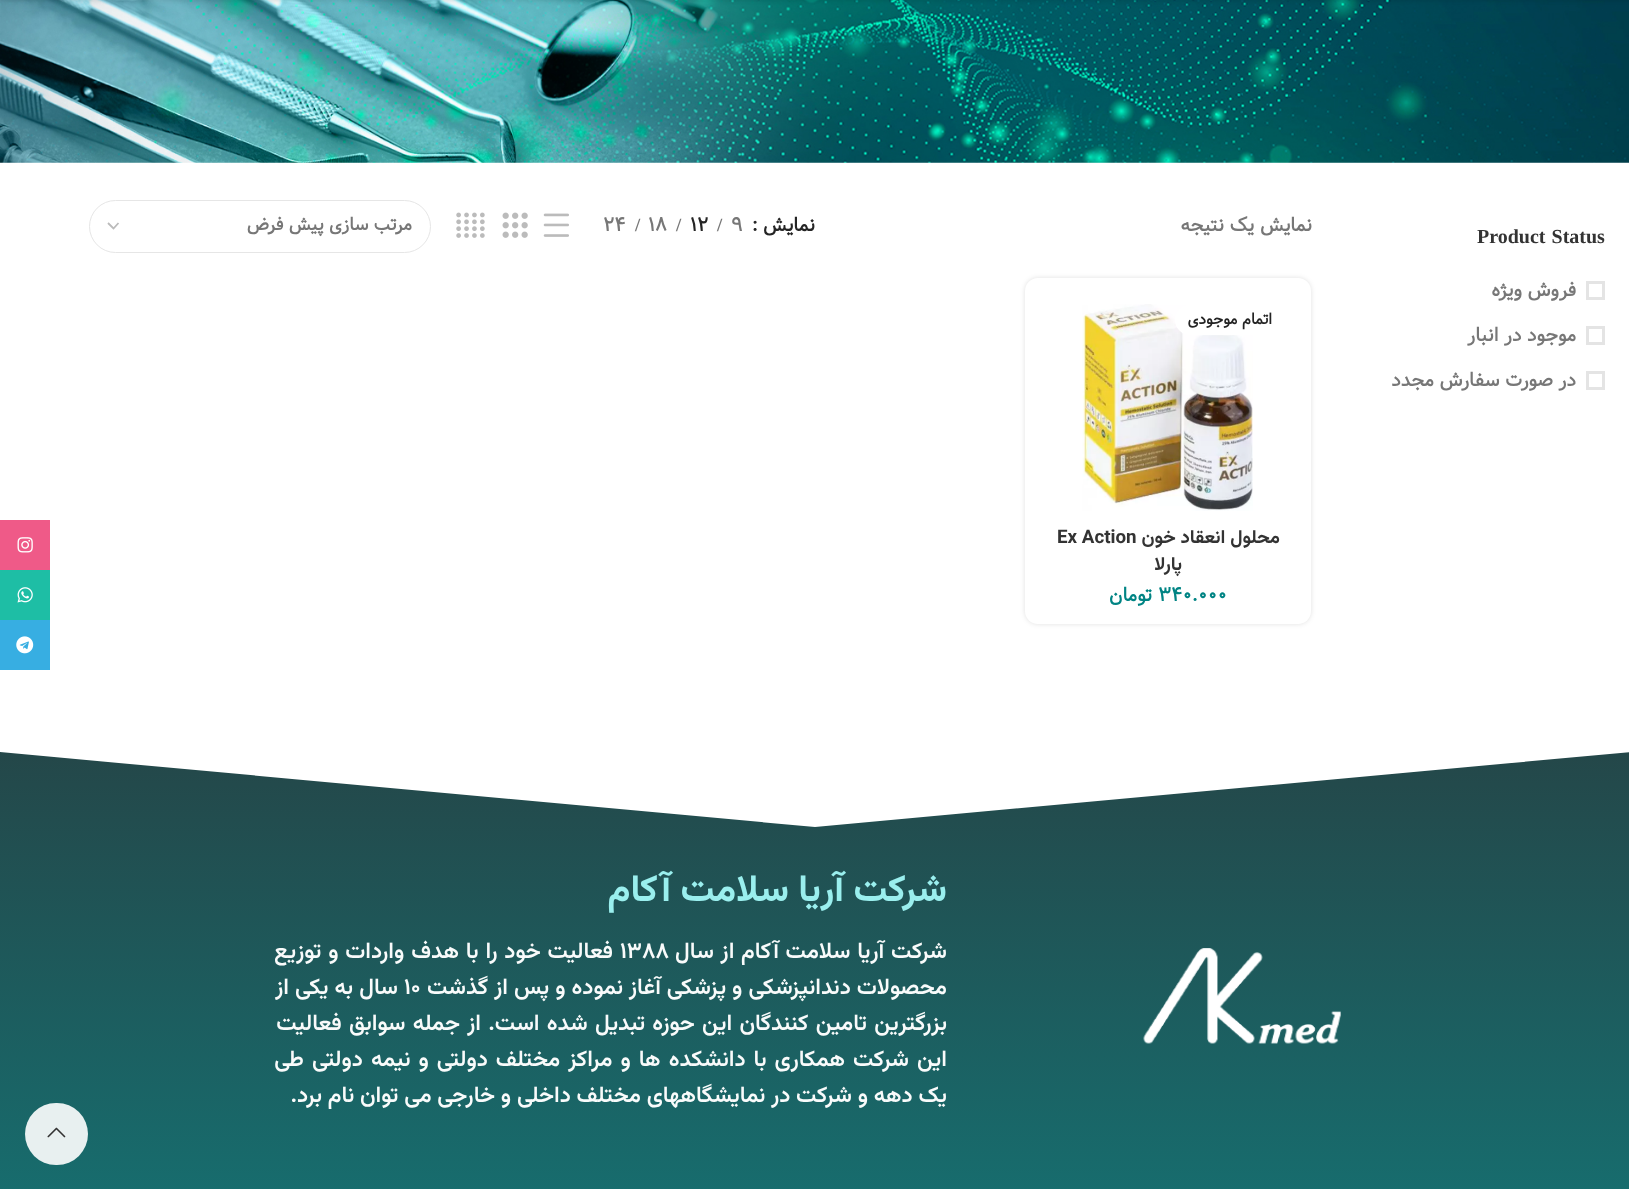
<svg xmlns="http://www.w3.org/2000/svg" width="1629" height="1189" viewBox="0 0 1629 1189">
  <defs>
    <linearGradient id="g1" gradientUnits="userSpaceOnUse" x1="815" y1="749" x2="815" y2="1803"><stop offset="0" stop-color="rgb(36,71,73)"/><stop offset="1" stop-color="rgb(5,160,160)"/></linearGradient>
  </defs>
  <rect width="100%" height="100%" fill="rgb(255,255,255)"/>
  <image x="0" y="0" width="1629" height="163" href="pic1.png"/>
  <rect x="0" y="-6" width="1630" height="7" fill="rgba(0,0,0,0.1)" filter="blur(2px)"/>
  <text x="1477" y="243" word-spacing="1" font-family="Liberation Serif" font-size="20" font-weight="bold" fill="rgb(51,51,51)">Product Status</text>
  <rect x="1587.5" y="282.5" width="16" height="16" fill="none" stroke="rgb(228,228,228)" stroke-width="3"/>
  <text x="1576" y="296" font-family="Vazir" font-size="18.75" font-weight="bold" direction="rtl" fill="rgb(119,119,119)">فروش ویژه</text>
  <rect x="1587.5" y="327.5" width="16" height="16" fill="none" stroke="rgb(228,228,228)" stroke-width="3"/>
  <text x="1576" y="341" font-family="Vazir" font-size="18.75" font-weight="bold" direction="rtl" fill="rgb(119,119,119)">موجود در انبار</text>
  <rect x="1587.5" y="372.5" width="16" height="16" fill="none" stroke="rgb(228,228,228)" stroke-width="3"/>
  <g font-family="Vazir" font-size="18.75" font-weight="bold" direction="rtl" fill="rgb(119,119,119)">
    <text x="1576" y="386">در صورت سفارش مجدد</text>
    <text x="1312" y="231">نمایش یک نتیجه</text>
  </g>
  <text x="815" y="231" font-family="Vazir" font-size="18.75" font-weight="bold" direction="rtl" fill="rgb(36,36,36)">نمایش</text>
  <text x="752" y="231" font-family="Vazir" font-size="18.75" font-weight="bold" fill="rgb(36,36,36)">:</text>
  <text x="731" y="231" font-family="Vazir" font-size="18.75" font-weight="bold" fill="rgb(119,119,119)">9</text>
  <text x="717" y="231" font-family="Liberation Serif" font-size="18.75" font-weight="bold" fill="rgb(119,119,119)">/</text>
  <text x="690" y="231" font-family="Vazir" font-size="18.75" font-weight="bold" fill="rgb(36,36,36)">12</text>
  <text x="676" y="231" font-family="Liberation Serif" font-size="18.75" font-weight="bold" fill="rgb(119,119,119)">/</text>
  <text x="648" y="231" font-family="Vazir" font-size="18.75" font-weight="bold" fill="rgb(119,119,119)">18</text>
  <text x="635" y="231" font-family="Liberation Serif" font-size="18.75" font-weight="bold" fill="rgb(119,119,119)">/</text>
  <text x="603" y="231" font-family="Vazir" font-size="18.75" font-weight="bold" fill="rgb(119,119,119)">24</text>
  <image x="543" y="213" width="26" height="24" href="pic2.png"/>
  <image x="502" y="212" width="26" height="26" href="pic3.png"/>
  <image x="456" y="212" width="29" height="26" href="pic4.png"/>
  <path d="M108 223L113.5 228.5L118.5 223" fill="none" stroke="rgb(187,187,187)" stroke-width="1.8"/>
  <rect x="89.5" y="200.5" width="341" height="52" rx="26" fill="none" stroke="rgb(230,230,230)"/>
  <text x="412" y="230" font-family="Vazir" font-size="17.5" font-weight="bold" direction="rtl" fill="rgb(119,119,119)">مرتب سازی پیش فرض</text>
  <rect x="1025" y="278" width="286" height="346" rx="13" fill="rgba(0,0,0,0.12)" filter="blur(2.5px)"/>
  <rect x="1025" y="278" width="286" height="346" rx="13" fill="rgb(255,255,255)"/>
  <image x="1082" y="304" width="171" height="207" href="pic5.png"/>
  <rect x="1175" y="305" width="109" height="30" rx="15" fill="rgb(255,255,255)"/>
  <text x="1272" y="324" font-family="Vazir" font-size="15" font-weight="bold" direction="rtl" fill="rgb(36,36,36)">اتمام موجودی</text>
  <text x="1280" y="543" font-family="Vazirmatn" font-size="18.75" font-weight="bold" direction="rtl" fill="rgb(51,51,51)">محلول انعقاد خون</text>
  <text x="1057" y="543" font-family="Vazirmatn" font-size="18.75" font-weight="bold" fill="rgb(51,51,51)">Ex Action</text>
  <text x="1182" y="570" font-family="Vazirmatn" font-size="18.75" font-weight="bold" direction="rtl" fill="rgb(51,51,51)">پارلا</text>
  <text x="1158" y="601" font-family="Vazir" font-size="18.75" font-weight="bold" fill="rgb(0,132,132)">۳۴۰.۰۰۰</text>
  <text x="1152" y="601" font-family="Vazir" font-size="18.75" font-weight="bold" direction="rtl" fill="rgb(0,132,132)">تومان</text>
  <rect x="0" y="752" width="1629" height="437" fill="url(#g1)"/>
  <path d="M815 827L-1 752V748H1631V752Z" fill="rgb(255,255,255)"/>
  <image x="1143" y="948" width="198" height="96" href="pic6.png"/>
  <text x="947" y="901" font-family="Vazirmatn" font-size="37.5" font-weight="bold" direction="rtl" fill="rgb(154,239,238)">شركت آريا سلامت آكام</text>
  <text x="947" y="958" word-spacing="1" font-family="Vazirmatn" font-size="22.5" font-weight="600" direction="rtl" fill="rgb(249,251,251)">شرکت آریا سلامت آکام از سال</text>
  <text x="620" y="958" font-family="Vazirmatn" font-size="22.5" font-weight="600" fill="rgb(249,251,251)">۱۳۸۸</text>
  <g font-family="Vazirmatn" font-size="22.5" font-weight="600" direction="rtl" fill="rgb(249,251,251)">
    <text x="613" y="958" word-spacing="1">فعالیت خود را با هدف واردات و توزیع</text>
    <text x="947" y="994" word-spacing="0.25">محصولات دندانپزشکی و پزشکی آغاز نموده و پس از گذشت</text>
  </g>
  <text x="404" y="994" font-family="Vazirmatn" font-size="22.5" font-weight="600" fill="rgb(249,251,251)">۱۰</text>
  <g font-family="Vazirmatn" font-size="22.5" font-weight="600" direction="rtl" fill="rgb(249,251,251)">
    <text x="398" y="994" word-spacing="0.25">سال به یکی از</text>
    <text>
      <tspan x="947" y="1030" word-spacing="1.5">بزرگترین تامین کنندگان این حوزه تبدیل شده است. از جمله سوابق فعالیت</tspan>
      <tspan x="947" y="1066" word-spacing="2.25">این شرکت همکاری با دانشکده ها و مراکز مختلف دولتی و نیمه دولتی طی</tspan>
      <tspan x="947" y="1102">یک دهه و شرکت در نمایشگاههای مختلف داخلی و خارجی می توان نام برد.</tspan>
    </text>
  </g>
  <rect x="0" y="520" width="50" height="50" fill="rgb(239,90,136)"/>
  <image x="17" y="537" width="16" height="16" href="pic7.png"/>
  <rect x="0" y="570" width="50" height="50" fill="rgb(30,190,165)"/>
  <image x="17" y="587" width="16" height="16" href="pic8.png"/>
  <rect x="0" y="620" width="50" height="50" fill="rgb(55,174,226)"/>
  <image x="16" y="636" width="18" height="18" href="pic9.png"/>
  <rect x="25" y="1103" width="63" height="62" rx="31" fill="rgba(255,255,255,0.9)"/>
  <image x="47" y="1127" width="19" height="11" href="pic10.png"/>
</svg>
